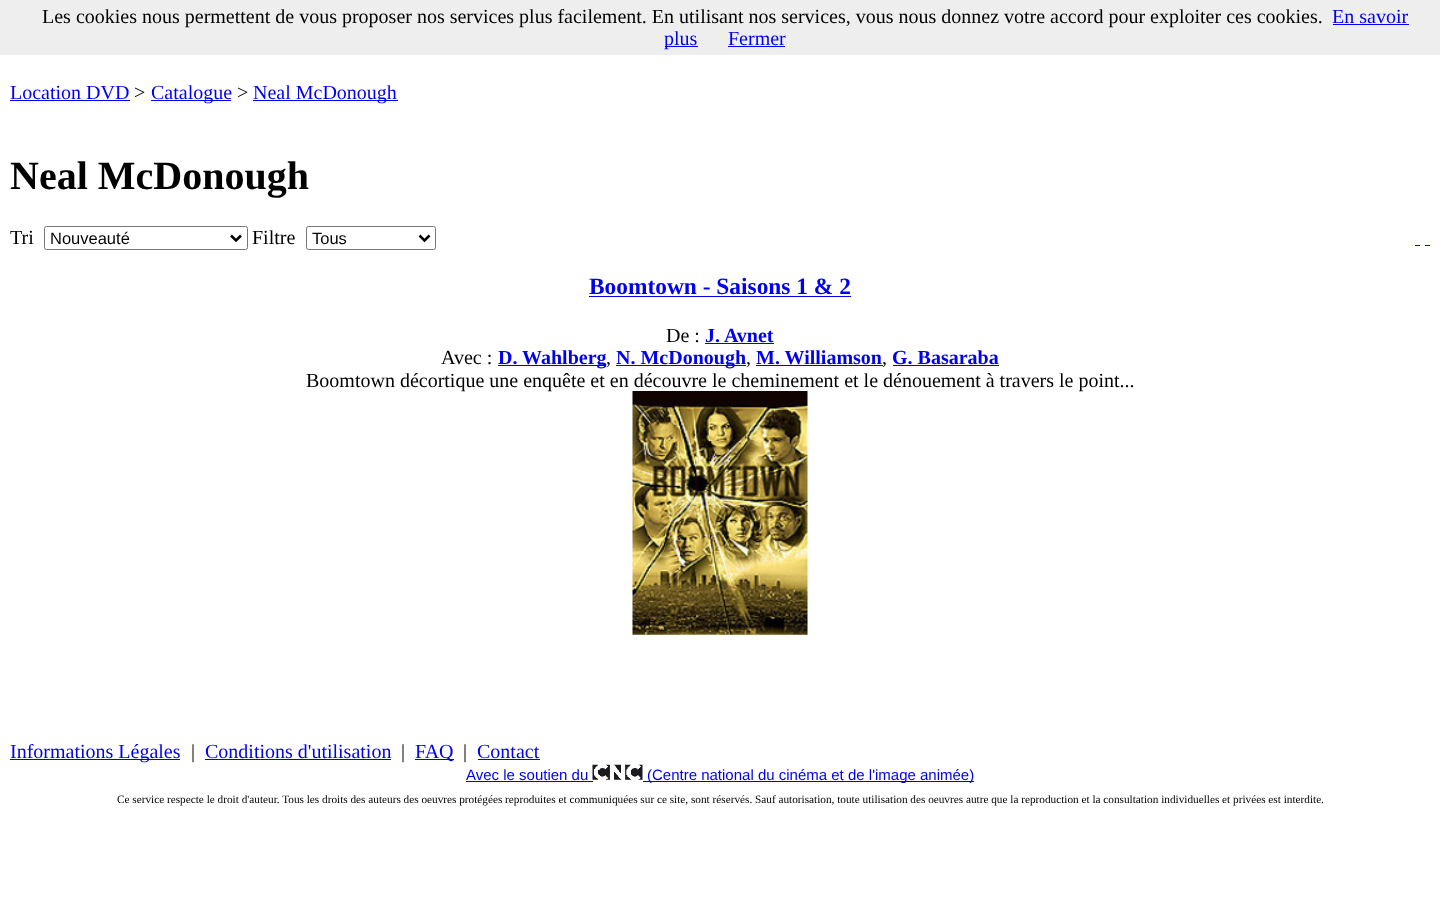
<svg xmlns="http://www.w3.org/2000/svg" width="1440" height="902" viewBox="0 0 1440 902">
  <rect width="100%" height="100%" fill="rgb(255,255,255)"/>
  <rect x="0" y="0" width="1440" height="55" fill="rgb(238,238,238)"/>
  <text x="42" y="23" font-family="Liberation Serif" font-size="20" fill="rgb(0,0,0)">Les cookies nous permettent de vous proposer nos services plus facilement. En utilisant nos services, vous nous donnez votre accord pour exploiter ces cookies.</text>
  <text x="1332" y="23" font-family="Liberation Serif" font-size="20" fill="rgb(0,0,238)">En savoir</text>
  <rect x="1333" y="24" width="76" height="1" fill="rgb(0,0,238)"/>
  <rect x="665" y="46" width="33" height="1" fill="rgb(0,0,238)"/>
  <g font-family="Liberation Serif" font-size="20" fill="rgb(0,0,238)">
    <text x="664" y="45">plus</text>
    <text x="728" y="45">Fermer</text>
  </g>
  <rect x="728" y="46" width="57" height="1" fill="rgb(0,0,238)"/>
  <text x="10" y="99" font-family="Liberation Serif" font-size="20" fill="rgb(0,0,238)">Location DVD</text>
  <rect x="10" y="100" width="120" height="1" fill="rgb(0,0,238)"/>
  <text x="134" y="99" font-family="Liberation Serif" font-size="20" fill="rgb(0,0,0)">&gt;</text>
  <rect x="151" y="100" width="80" height="1" fill="rgb(0,0,238)"/>
  <text x="151" y="99" font-family="Liberation Serif" font-size="20" fill="rgb(0,0,238)">Catalogue</text>
  <text x="237" y="99" font-family="Liberation Serif" font-size="20" fill="rgb(0,0,0)">&gt;</text>
  <rect x="253" y="100" width="145" height="1" fill="rgb(0,0,238)"/>
  <text x="253" y="99" font-family="Liberation Serif" font-size="20" fill="rgb(0,0,238)">Neal McDonough</text>
  <text x="10" y="189" font-family="Liberation Serif" font-size="40" font-weight="bold" fill="rgb(0,0,0)">Neal McDonough</text>
  <rect x="1415" y="245" width="5" height="1" fill="rgb(0,0,238)"/>
  <rect x="1425" y="245" width="5" height="1" fill="rgb(0,0,238)"/>
  <text x="10" y="244" font-family="Liberation Serif" font-size="20" fill="rgb(0,0,0)">Tri</text>
  <rect x="44.5" y="226.5" width="203" height="23" rx="2" fill="none" stroke="rgb(118,118,118)"/>
  <path d="M231 235.5L236 240.5L241 235.5" fill="none" stroke="rgb(0,0,0)" stroke-width="2.5"/>
  <text x="50" y="244" font-family="Liberation Sans" font-size="16.5" fill="rgb(0,0,0)">Nouveauté</text>
  <text x="252" y="244" font-family="Liberation Serif" font-size="20" fill="rgb(0,0,0)">Filtre</text>
  <rect x="306.5" y="226.5" width="129" height="23" rx="2" fill="none" stroke="rgb(118,118,118)"/>
  <path d="M419.5 235.5L424.5 240.5L429.5 235.5" fill="none" stroke="rgb(0,0,0)" stroke-width="2.5"/>
  <text x="312" y="244" font-family="Liberation Sans" font-size="16.5" fill="rgb(0,0,0)">Tous</text>
  <text x="589" y="294" font-family="Liberation Serif" font-size="23.4" font-weight="bold" fill="rgb(0,0,238)">Boomtown - Saisons 1 &amp; 2</text>
  <rect x="589" y="296" width="262" height="1" fill="rgb(0,0,238)"/>
  <text x="666" y="342" font-family="Liberation Serif" font-size="20" fill="rgb(0,0,0)">De :</text>
  <text x="705" y="342" font-family="Liberation Serif" font-size="20" font-weight="bold" fill="rgb(0,0,238)">J. Avnet</text>
  <rect x="705" y="343" width="69" height="1" fill="rgb(0,0,238)"/>
  <text x="441" y="364" font-family="Liberation Serif" font-size="20" fill="rgb(0,0,0)">Avec :</text>
  <rect x="498" y="365" width="108" height="1" fill="rgb(0,0,238)"/>
  <text x="498" y="364" font-family="Liberation Serif" font-size="20" font-weight="bold" fill="rgb(0,0,238)">D. Wahlberg</text>
  <text x="606" y="364" font-family="Liberation Serif" font-size="20" fill="rgb(0,0,0)">,</text>
  <rect x="616" y="365" width="130" height="1" fill="rgb(0,0,238)"/>
  <text x="616" y="364" font-family="Liberation Serif" font-size="20" font-weight="bold" fill="rgb(0,0,238)">N. McDonough</text>
  <text x="746" y="364" font-family="Liberation Serif" font-size="20" fill="rgb(0,0,0)">,</text>
  <text x="756" y="364" font-family="Liberation Serif" font-size="20" font-weight="bold" fill="rgb(0,0,238)">M. Williamson</text>
  <rect x="756" y="365" width="127" height="1" fill="rgb(0,0,238)"/>
  <text x="882" y="364" font-family="Liberation Serif" font-size="20" fill="rgb(0,0,0)">,</text>
  <text x="892" y="364" font-family="Liberation Serif" font-size="20" font-weight="bold" fill="rgb(0,0,238)">G. Basaraba</text>
  <rect x="893" y="365" width="106" height="1" fill="rgb(0,0,238)"/>
  <text x="306" y="387" font-family="Liberation Serif" font-size="20" fill="rgb(0,0,0)">Boomtown décortique une enquête et en découvre le cheminement et le dénouement à travers le point...</text>
  <image x="632" y="391" width="176" height="244" href="pic1.png"/>
  <rect x="10" y="759" width="170" height="1" fill="rgb(0,0,238)"/>
  <text x="10" y="758" font-family="Liberation Serif" font-size="20" fill="rgb(0,0,238)">Informations Légales</text>
  <text x="191" y="758" font-family="Liberation Serif" font-size="20" fill="rgb(0,0,0)">|</text>
  <text x="205" y="758" font-family="Liberation Serif" font-size="20" fill="rgb(0,0,238)">Conditions d'utilisation</text>
  <rect x="205" y="759" width="186" height="1" fill="rgb(0,0,238)"/>
  <text x="401" y="758" font-family="Liberation Serif" font-size="20" fill="rgb(0,0,0)">|</text>
  <rect x="415" y="759" width="39" height="1" fill="rgb(0,0,238)"/>
  <text x="415" y="758" font-family="Liberation Serif" font-size="20" fill="rgb(0,0,238)">FAQ</text>
  <text x="463" y="758" font-family="Liberation Serif" font-size="20" fill="rgb(0,0,0)">|</text>
  <text x="477" y="758" font-family="Liberation Serif" font-size="20" fill="rgb(0,0,238)">Contact</text>
  <rect x="478" y="759" width="62" height="1" fill="rgb(0,0,238)"/>
  <text x="466" y="780" font-family="Liberation Sans" font-size="15" fill="rgb(0,0,238)">Avec le soutien du</text>
  <rect x="466" y="781" width="127" height="1" fill="rgb(0,0,238)"/>
  <image x="592" y="764" width="51" height="16" href="pic2.png"/>
  <rect x="643" y="781" width="331" height="1" fill="rgb(0,0,238)"/>
  <text x="647" y="780" font-family="Liberation Sans" font-size="15" fill="rgb(0,0,238)">(Centre national du cinéma et de l'image animée)</text>
  <text x="117" y="803" font-family="Liberation Serif" font-size="11.25" fill="rgb(0,0,0)">Ce service respecte le droit d'auteur. Tous les droits des auteurs des oeuvres protégées reproduites et communiquées sur ce site, sont réservés. Sauf autorisation, toute utilisation des oeuvres autre que la reproduction et la consultation individuelles et privées est interdite.</text>
</svg>
